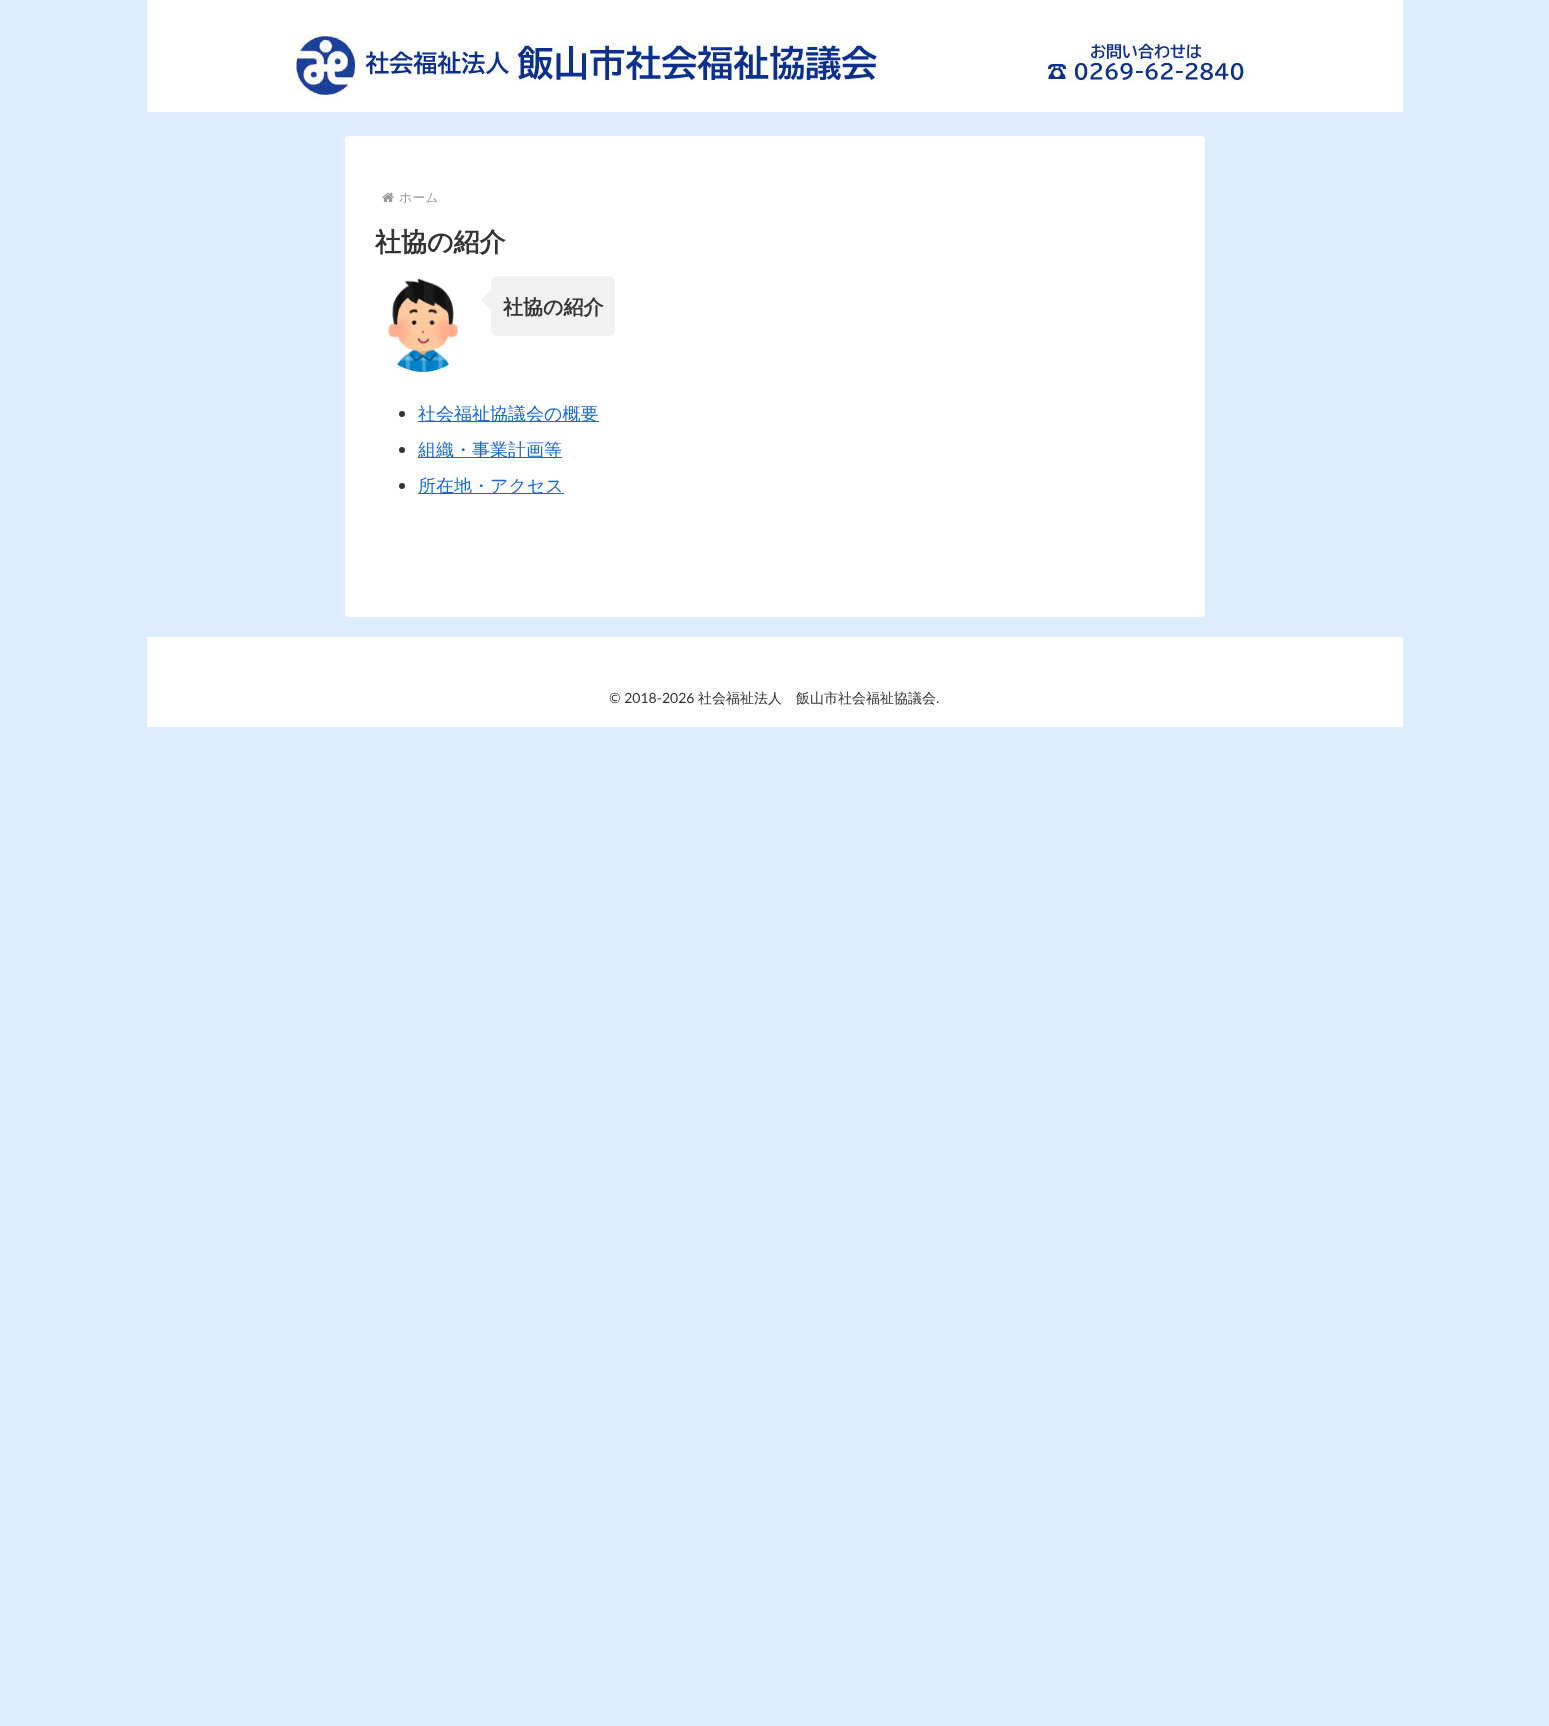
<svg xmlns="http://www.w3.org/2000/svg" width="1549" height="1726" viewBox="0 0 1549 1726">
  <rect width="100%" height="100%" fill="rgb(219,237,255)"/>
  <rect x="147" y="0" width="1256" height="112" fill="rgb(255,255,255)"/>
  <image x="295" y="35" width="952" height="64" href="pic1.png"/>
  <rect x="345" y="136" width="860" height="481" rx="4" fill="rgb(255,255,255)"/>
  <image x="382" y="192" width="12" height="10" href="pic2.png"/>
  <text x="399" y="202" font-family="WenQuanYi Zen Hei" font-size="13" font-weight="500" fill="rgb(153,153,153)">ホーム</text>
  <text x="375" y="251" font-family="WenQuanYi Zen Hei" font-size="26" font-weight="bold" fill="rgb(51,51,51)">社協の紹介</text>
  <image x="388" y="278" width="71" height="94" href="pic3.png"/>
  <rect x="492" y="277" width="122" height="58" rx="5" fill="rgb(241,241,241)" stroke="rgb(241,241,241)" stroke-width="2"/>
  <path d="M493 288V312L481 300Z" fill="rgb(241,241,241)"/>
  <text x="503" y="314" font-family="WenQuanYi Zen Hei" font-size="20" font-weight="bold" fill="rgb(51,51,51)">社協の紹介</text>
  <circle cx="402" cy="414" r="3" fill="rgb(51,51,51)"/>
  <rect x="418" y="421" width="181" height="1" fill="rgb(25,103,210)"/>
  <text x="418" y="420" font-family="WenQuanYi Zen Hei" font-size="18" font-weight="500" fill="rgb(25,103,210)">社会福祉協議会の概要</text>
  <circle cx="402" cy="450" r="3" fill="rgb(51,51,51)"/>
  <rect x="418" y="457" width="144" height="1" fill="rgb(25,103,210)"/>
  <text x="418" y="456" font-family="WenQuanYi Zen Hei" font-size="18" font-weight="500" fill="rgb(25,103,210)">組織・事業計画等</text>
  <circle cx="402" cy="486" r="3" fill="rgb(51,51,51)"/>
  <rect x="418" y="493" width="146" height="1" fill="rgb(25,103,210)"/>
  <text x="418" y="492" font-family="WenQuanYi Zen Hei" font-size="18" font-weight="500" fill="rgb(25,103,210)">所在地・アクセス</text>
  <rect x="147" y="637" width="1256" height="90" fill="rgb(255,255,255)"/>
  <text x="609" y="703" font-family="Lato" font-size="14" fill="rgb(51,51,51)">© 2018-2026</text>
  <text x="698" y="703" font-family="WenQuanYi Zen Hei" font-size="14" font-weight="500" fill="rgb(51,51,51)">社会福祉法人　飯山市社会福祉協議会</text>
  <text x="936" y="703" font-family="Lato" font-size="14" fill="rgb(51,51,51)">.</text>
</svg>
